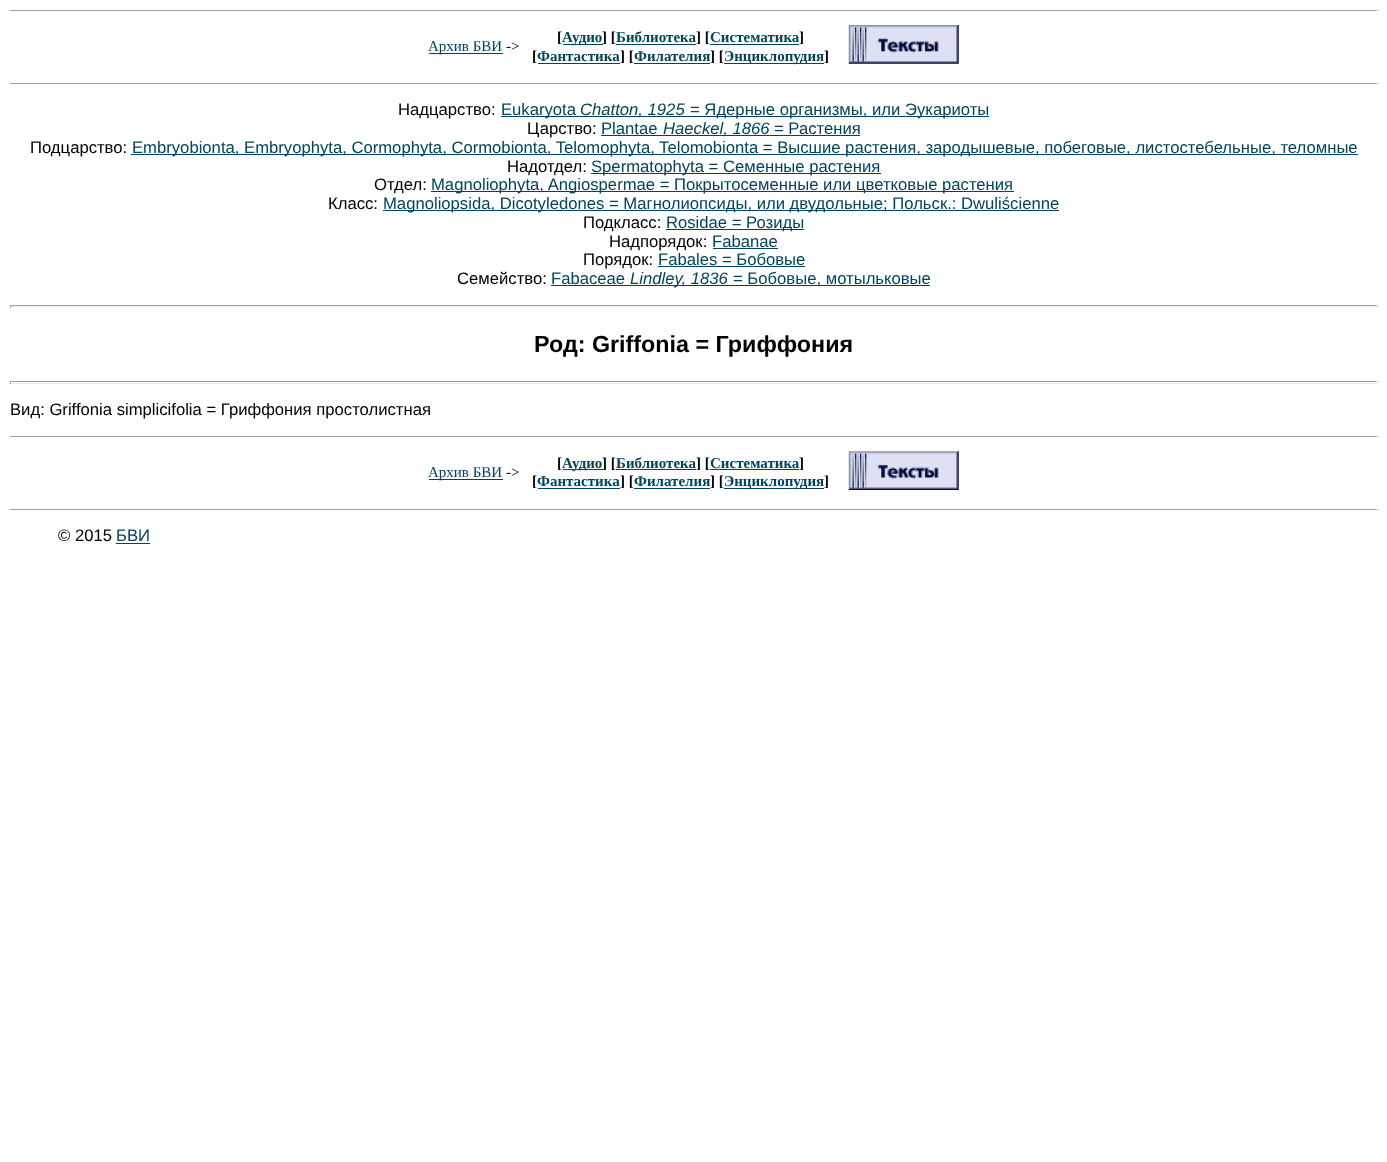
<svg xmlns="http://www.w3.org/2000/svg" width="1387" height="1162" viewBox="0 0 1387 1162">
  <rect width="100%" height="100%" fill="rgb(255,255,255)"/>
  <rect x="10" y="10" width="1368" height="1" fill="rgb(159,159,159)"/>
  <rect x="1376" y="10" width="1" height="1" fill="rgb(238,238,238)"/>
  <rect x="429" y="53" width="74" height="1" fill="rgb(1,68,92)"/>
  <text x="428" y="51" font-family="Liberation Serif" font-size="15" fill="rgb(1,68,92)">Архив БВИ</text>
  <text x="506" y="51" font-family="Liberation Serif" font-size="15" fill="rgb(0,0,0)">-&gt;</text>
  <text x="557" y="42" font-family="Liberation Serif" font-size="15" font-weight="bold" fill="rgb(0,0,0)">[</text>
  <rect x="563" y="44" width="40" height="1" fill="rgb(1,68,92)"/>
  <text x="562" y="42" font-family="Liberation Serif" font-size="15" font-weight="bold" fill="rgb(1,68,92)">Аудио</text>
  <text x="602" y="42" font-family="Liberation Serif" font-size="15" font-weight="bold" fill="rgb(0,0,0)">] [</text>
  <rect x="616" y="44" width="80" height="1" fill="rgb(1,68,92)"/>
  <text x="616" y="42" font-family="Liberation Serif" font-size="15" font-weight="bold" fill="rgb(1,68,92)">Библиотека</text>
  <text x="696" y="42" font-family="Liberation Serif" font-size="15" font-weight="bold" fill="rgb(0,0,0)">] [</text>
  <rect x="710" y="44" width="89" height="1" fill="rgb(1,68,92)"/>
  <text x="710" y="42" font-family="Liberation Serif" font-size="15" font-weight="bold" fill="rgb(1,68,92)">Систематика</text>
  <g font-family="Liberation Serif" font-size="15" font-weight="bold" fill="rgb(0,0,0)">
    <text x="799" y="42">]</text>
    <text x="532" y="61">[</text>
  </g>
  <text x="537" y="61" font-family="Liberation Serif" font-size="15" font-weight="bold" fill="rgb(1,68,92)">Фантастика</text>
  <rect x="538" y="63" width="82" height="1" fill="rgb(1,68,92)"/>
  <text x="620" y="61" font-family="Liberation Serif" font-size="15" font-weight="bold" fill="rgb(0,0,0)">] [</text>
  <rect x="634" y="63" width="76" height="1" fill="rgb(1,68,92)"/>
  <text x="634" y="61" font-family="Liberation Serif" font-size="15" font-weight="bold" fill="rgb(1,68,92)">Филателия</text>
  <text x="710" y="61" font-family="Liberation Serif" font-size="15" font-weight="bold" fill="rgb(0,0,0)">] [</text>
  <rect x="724" y="63" width="100" height="1" fill="rgb(1,68,92)"/>
  <text x="724" y="61" font-family="Liberation Serif" font-size="15" font-weight="bold" fill="rgb(1,68,92)">Энциклопудия</text>
  <text x="824" y="61" font-family="Liberation Serif" font-size="15" font-weight="bold" fill="rgb(0,0,0)">]</text>
  <image x="848" y="25" width="111" height="39" href="pic1.png"/>
  <rect x="10" y="83" width="1368" height="1" fill="rgb(159,159,159)"/>
  <rect x="1376" y="83" width="1" height="1" fill="rgb(238,238,238)"/>
  <text x="398" y="115" font-family="Liberation Sans" font-size="16.67" fill="rgb(0,0,0)">Надцарство:</text>
  <rect x="501" y="116" width="184" height="1" fill="rgb(1,68,92)"/>
  <text x="501" y="115" font-family="Liberation Sans" font-size="16.67" fill="rgb(1,68,92)">Eukaryota</text>
  <text x="580" y="115" font-family="Liberation Sans" font-size="16.67" font-style="italic" fill="rgb(1,68,92)">Chatton, 1925</text>
  <rect x="685" y="116" width="304" height="1" fill="rgb(1,68,92)"/>
  <text x="690" y="115" font-family="Liberation Sans" font-size="16.67" fill="rgb(1,68,92)">= Ядерные организмы, или Эукариоты</text>
  <text x="527" y="134" font-family="Liberation Sans" font-size="16.67" fill="rgb(0,0,0)">Царство:</text>
  <text x="601" y="134" font-family="Liberation Sans" font-size="16.67" fill="rgb(1,68,92)">Plantae</text>
  <rect x="601" y="135" width="168" height="1" fill="rgb(1,68,92)"/>
  <text x="663" y="134" font-family="Liberation Sans" font-size="16.67" font-style="italic" fill="rgb(1,68,92)">Haeckel, 1866</text>
  <rect x="769" y="135" width="91" height="1" fill="rgb(1,68,92)"/>
  <text x="774" y="134" font-family="Liberation Sans" font-size="16.67" fill="rgb(1,68,92)">= Растения</text>
  <text x="30" y="153" font-family="Liberation Sans" font-size="16.67" fill="rgb(0,0,0)">Подцарство:</text>
  <rect x="131" y="154" width="1227" height="1" fill="rgb(1,68,92)"/>
  <text x="132" y="153" font-family="Liberation Sans" font-size="16.67" fill="rgb(1,68,92)">Embryobionta, Embryophyta, Cormophyta, Cormobionta, Telomophyta, Telomobionta = Высшие растения, зародышевые, побеговые, листостебельные, теломные</text>
  <text x="507" y="172" font-family="Liberation Sans" font-size="16.67" fill="rgb(0,0,0)">Надотдел:</text>
  <rect x="591" y="173" width="290" height="1" fill="rgb(1,68,92)"/>
  <text x="591" y="172" font-family="Liberation Sans" font-size="16.67" fill="rgb(1,68,92)">Spermatophyta = Семенные растения</text>
  <text x="374" y="190" font-family="Liberation Sans" font-size="16.67" fill="rgb(0,0,0)">Отдел:</text>
  <rect x="431" y="191" width="583" height="1" fill="rgb(1,68,92)"/>
  <text x="431" y="190" font-family="Liberation Sans" font-size="16.67" fill="rgb(1,68,92)">Magnoliophyta, Angiospermae = Покрытосеменные или цветковые растения</text>
  <text x="328" y="209" font-family="Liberation Sans" font-size="16.67" fill="rgb(0,0,0)">Класс:</text>
  <rect x="383" y="210" width="676" height="1" fill="rgb(1,68,92)"/>
  <text x="383" y="209" font-family="Liberation Sans" font-size="16.67" fill="rgb(1,68,92)">Magnoliopsida, Dicotyledones = Магнолиопсиды, или двудольные; Польск.: Dwuliścienne</text>
  <text x="583" y="228" font-family="Liberation Sans" font-size="16.67" fill="rgb(0,0,0)">Подкласс:</text>
  <rect x="666" y="229" width="138" height="1" fill="rgb(1,68,92)"/>
  <text x="666" y="228" font-family="Liberation Sans" font-size="16.67" fill="rgb(1,68,92)">Rosidae = Розиды</text>
  <text x="609" y="247" font-family="Liberation Sans" font-size="16.67" fill="rgb(0,0,0)">Надпорядок:</text>
  <text x="712" y="247" font-family="Liberation Sans" font-size="16.67" fill="rgb(1,68,92)">Fabanae</text>
  <rect x="713" y="248" width="65" height="1" fill="rgb(1,68,92)"/>
  <text x="583" y="265" font-family="Liberation Sans" font-size="16.67" fill="rgb(0,0,0)">Порядок:</text>
  <text x="658" y="265" font-family="Liberation Sans" font-size="16.67" fill="rgb(1,68,92)">Fabales = Бобовые</text>
  <rect x="658" y="266" width="147" height="1" fill="rgb(1,68,92)"/>
  <text x="457" y="284" font-family="Liberation Sans" font-size="16.67" fill="rgb(0,0,0)">Семейство:</text>
  <text x="551" y="284" font-family="Liberation Sans" font-size="16.67" fill="rgb(1,68,92)">Fabaceae</text>
  <rect x="551" y="285" width="177" height="1" fill="rgb(1,68,92)"/>
  <text x="630" y="284" font-family="Liberation Sans" font-size="16.67" font-style="italic" fill="rgb(1,68,92)">Lindley, 1836</text>
  <rect x="728" y="285" width="202" height="1" fill="rgb(1,68,92)"/>
  <text x="733" y="284" font-family="Liberation Sans" font-size="16.67" fill="rgb(1,68,92)">= Бобовые, мотыльковые</text>
  <rect x="10" y="305" width="1368" height="1" fill="rgb(159,159,159)"/>
  <rect x="1376" y="305" width="1" height="3" fill="rgb(238,238,238)"/>
  <rect x="10" y="306" width="1368" height="1" fill="rgb(238,238,238)"/>
  <rect x="10" y="305" width="1" height="3" fill="rgb(159,159,159)"/>
  <text x="534" y="352" font-family="Liberation Sans" font-size="23.3" font-weight="bold" fill="rgb(0,0,0)">Род: Griffonia = Гриффония</text>
  <rect x="10" y="381" width="1368" height="1" fill="rgb(159,159,159)"/>
  <rect x="1376" y="381" width="1" height="3" fill="rgb(238,238,238)"/>
  <rect x="10" y="383" width="1368" height="1" fill="rgb(238,238,238)"/>
  <rect x="10" y="381" width="1" height="3" fill="rgb(159,159,159)"/>
  <text x="10" y="415" font-family="Liberation Sans" font-size="16.67" fill="rgb(0,0,0)">Вид: Griffonia simplicifolia = Гриффония простолистная</text>
  <rect x="10" y="436" width="1368" height="1" fill="rgb(159,159,159)"/>
  <rect x="1376" y="436" width="1" height="1" fill="rgb(238,238,238)"/>
  <rect x="429" y="479" width="74" height="1" fill="rgb(1,68,92)"/>
  <text x="428" y="477" font-family="Liberation Serif" font-size="15" fill="rgb(1,68,92)">Архив БВИ</text>
  <text x="506" y="477" font-family="Liberation Serif" font-size="15" fill="rgb(0,0,0)">-&gt;</text>
  <text x="557" y="468" font-family="Liberation Serif" font-size="15" font-weight="bold" fill="rgb(0,0,0)">[</text>
  <rect x="563" y="469" width="40" height="1" fill="rgb(1,68,92)"/>
  <text x="562" y="468" font-family="Liberation Serif" font-size="15" font-weight="bold" fill="rgb(1,68,92)">Аудио</text>
  <text x="602" y="468" font-family="Liberation Serif" font-size="15" font-weight="bold" fill="rgb(0,0,0)">] [</text>
  <rect x="616" y="469" width="80" height="1" fill="rgb(1,68,92)"/>
  <text x="616" y="468" font-family="Liberation Serif" font-size="15" font-weight="bold" fill="rgb(1,68,92)">Библиотека</text>
  <text x="696" y="468" font-family="Liberation Serif" font-size="15" font-weight="bold" fill="rgb(0,0,0)">] [</text>
  <rect x="710" y="469" width="89" height="1" fill="rgb(1,68,92)"/>
  <text x="710" y="468" font-family="Liberation Serif" font-size="15" font-weight="bold" fill="rgb(1,68,92)">Систематика</text>
  <g font-family="Liberation Serif" font-size="15" font-weight="bold" fill="rgb(0,0,0)">
    <text x="799" y="468">]</text>
    <text x="532" y="486">[</text>
  </g>
  <text x="537" y="486" font-family="Liberation Serif" font-size="15" font-weight="bold" fill="rgb(1,68,92)">Фантастика</text>
  <rect x="538" y="488" width="82" height="1" fill="rgb(1,68,92)"/>
  <text x="620" y="486" font-family="Liberation Serif" font-size="15" font-weight="bold" fill="rgb(0,0,0)">] [</text>
  <rect x="634" y="488" width="76" height="1" fill="rgb(1,68,92)"/>
  <text x="634" y="486" font-family="Liberation Serif" font-size="15" font-weight="bold" fill="rgb(1,68,92)">Филателия</text>
  <text x="710" y="486" font-family="Liberation Serif" font-size="15" font-weight="bold" fill="rgb(0,0,0)">] [</text>
  <rect x="724" y="488" width="100" height="1" fill="rgb(1,68,92)"/>
  <text x="724" y="486" font-family="Liberation Serif" font-size="15" font-weight="bold" fill="rgb(1,68,92)">Энциклопудия</text>
  <text x="824" y="486" font-family="Liberation Serif" font-size="15" font-weight="bold" fill="rgb(0,0,0)">]</text>
  <image x="848" y="451" width="111" height="39" href="pic2.png"/>
  <rect x="10" y="509" width="1368" height="1" fill="rgb(159,159,159)"/>
  <rect x="1376" y="509" width="1" height="1" fill="rgb(238,238,238)"/>
  <text x="58" y="541" font-family="Liberation Sans" font-size="16.67" fill="rgb(0,0,0)">© 2015</text>
  <text x="116" y="541" font-family="Liberation Sans" font-size="16.67" fill="rgb(1,68,92)">БВИ</text>
  <rect x="116" y="543" width="34" height="1" fill="rgb(1,68,92)"/>
</svg>
